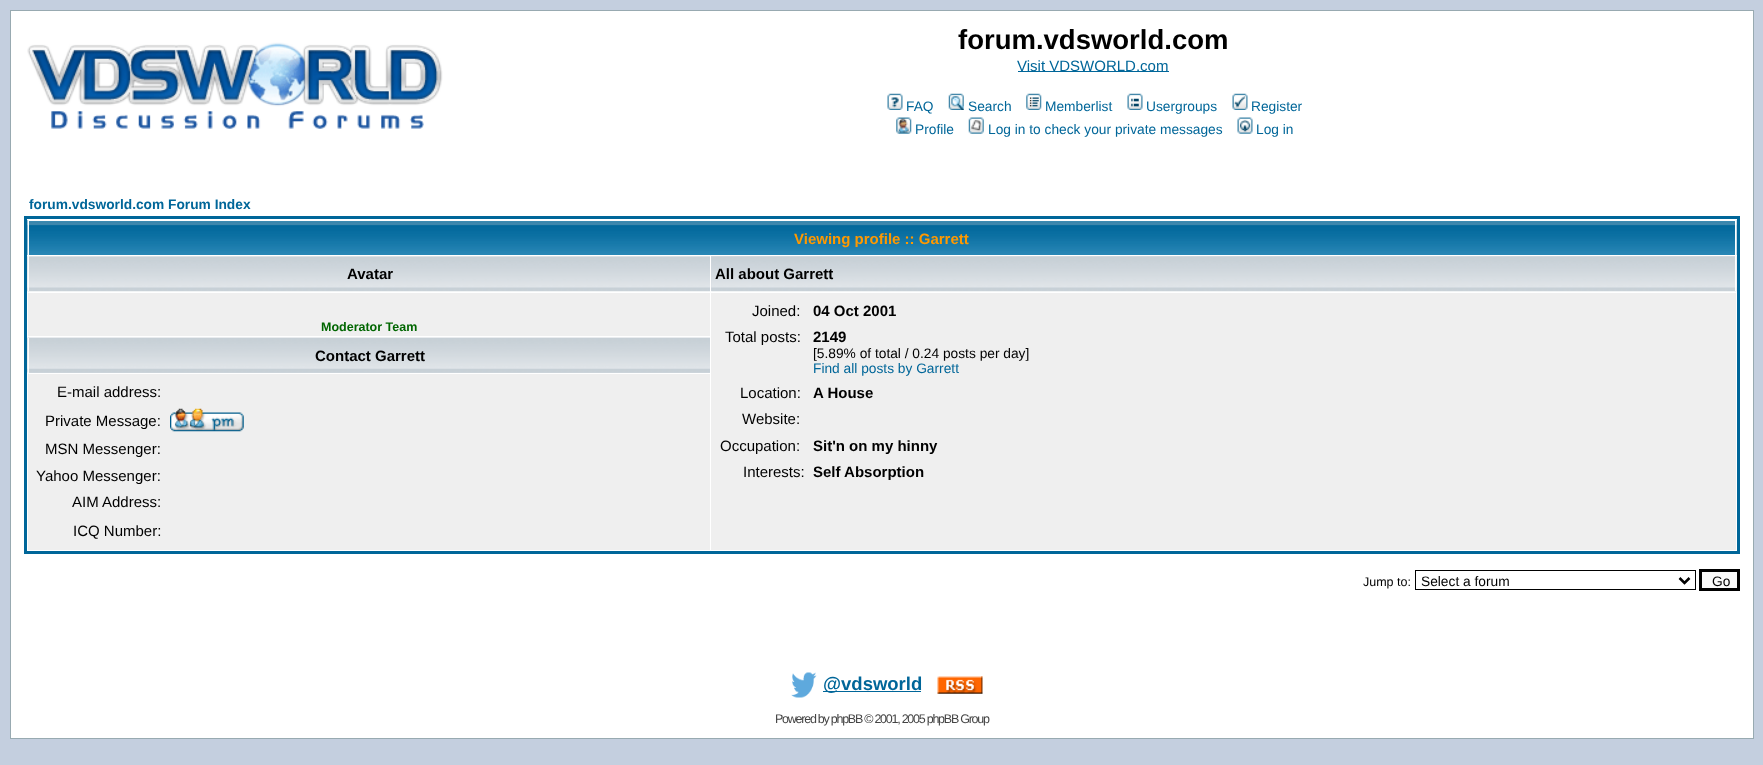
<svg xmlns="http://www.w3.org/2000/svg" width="1763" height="765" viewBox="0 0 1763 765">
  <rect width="100%" height="100%" fill="rgb(196,207,223)"/>
  <rect x="10.5" y="10.5" width="1743" height="728" fill="rgb(255,255,255)" stroke="rgb(152,170,177)"/>
  <image x="27" y="42" width="416" height="87" href="pic1.png"/>
  <text x="958" y="49" font-family="Liberation Sans" font-size="27.5" font-weight="bold" fill="rgb(0,0,0)">forum.vdsworld.com</text>
  <rect x="1018" y="71" width="151" height="1" fill="rgb(0,102,153)"/>
  <text x="1017" y="71" font-family="Liberation Sans" font-size="15" fill="rgb(0,102,153)">Visit VDSWORLD.com</text>
  <image x="887" y="93" width="16" height="17" href="pic2.png"/>
  <text x="906" y="111" font-family="Liberation Sans" font-size="13.75" fill="rgb(0,102,153)">FAQ</text>
  <image x="948" y="93" width="16" height="17" href="pic3.png"/>
  <text x="968" y="111" font-family="Liberation Sans" font-size="13.75" fill="rgb(0,102,153)">Search</text>
  <image x="1026" y="93" width="16" height="17" href="pic4.png"/>
  <text x="1045" y="111" font-family="Liberation Sans" font-size="13.75" fill="rgb(0,102,153)">Memberlist</text>
  <image x="1127" y="93" width="16" height="17" href="pic5.png"/>
  <text x="1146" y="111" font-family="Liberation Sans" font-size="13.75" fill="rgb(0,102,153)">Usergroups</text>
  <image x="1232" y="93" width="16" height="17" href="pic6.png"/>
  <text x="1251" y="111" font-family="Liberation Sans" font-size="13.75" fill="rgb(0,102,153)">Register</text>
  <image x="896" y="117" width="16" height="17" href="pic7.png"/>
  <text x="915" y="134" font-family="Liberation Sans" font-size="13.75" fill="rgb(0,102,153)">Profile</text>
  <image x="968" y="117" width="16" height="17" href="pic8.png"/>
  <text x="988" y="134" font-family="Liberation Sans" font-size="13.75" fill="rgb(0,102,153)">Log in to check your private messages</text>
  <image x="1237" y="117" width="16" height="17" href="pic9.png"/>
  <text x="1256" y="134" font-family="Liberation Sans" font-size="13.75" fill="rgb(0,102,153)">Log in</text>
  <text x="29" y="209" font-family="Liberation Sans" font-size="13.75" font-weight="bold" fill="rgb(0,102,153)">forum.vdsworld.com Forum Index</text>
  <rect x="25.5" y="217.5" width="1713" height="335" fill="none" stroke="rgb(0,102,153)" stroke-width="3"/>
  <image x="27" y="220" width="1710" height="35" href="pic10.png"/>
  <rect x="28" y="220" width="1708" height="1" fill="rgb(255,255,255)"/>
  <rect x="1735" y="220" width="1" height="35" fill="rgb(255,255,255)"/>
  <rect x="28" y="220" width="1" height="35" fill="rgb(255,255,255)"/>
  <text x="794" y="244" font-family="Liberation Sans" font-size="15" font-weight="bold" fill="rgb(255,153,0)">Viewing profile :: Garrett</text>
  <image x="27" y="256" width="683" height="36" href="pic11.png"/>
  <rect x="28" y="256" width="1" height="35" fill="rgb(255,255,255)"/>
  <text x="347" y="279" font-family="Liberation Sans" font-size="15" font-weight="bold" fill="rgb(0,0,0)">Avatar</text>
  <rect x="711" y="256" width="1024" height="35" fill="rgb(209,215,220)"/>
  <image x="711" y="256" width="1026" height="36" href="pic12.png"/>
  <rect x="1735" y="256" width="1" height="35" fill="rgb(255,255,255)"/>
  <text x="715" y="279" font-family="Liberation Sans" font-size="15" font-weight="bold" fill="rgb(0,0,0)">All about Garrett</text>
  <rect x="28" y="293" width="682" height="43" fill="rgb(239,239,239)"/>
  <text x="321" y="331" font-family="Liberation Sans" font-size="12.5" font-weight="bold" fill="rgb(0,102,0)">Moderator Team</text>
  <rect x="711" y="293" width="1025" height="257" fill="rgb(239,239,239)"/>
  <text x="752" y="316" font-family="Liberation Sans" font-size="15" fill="rgb(0,0,0)">Joined:</text>
  <text x="813" y="316" font-family="Liberation Sans" font-size="15" font-weight="bold" fill="rgb(0,0,0)">04 Oct 2001</text>
  <text x="725" y="342" font-family="Liberation Sans" font-size="15" fill="rgb(0,0,0)">Total posts:</text>
  <text x="813" y="342" font-family="Liberation Sans" font-size="15" font-weight="bold" fill="rgb(0,0,0)">2149</text>
  <text x="813" y="358" font-family="Liberation Sans" font-size="13.75" fill="rgb(0,0,0)">[5.89% of total / 0.24 posts per day]</text>
  <text x="813" y="373" font-family="Liberation Sans" font-size="13.75" fill="rgb(0,102,153)">Find all posts by Garrett</text>
  <text x="740" y="398" font-family="Liberation Sans" font-size="15" fill="rgb(0,0,0)">Location:</text>
  <text x="813" y="398" font-family="Liberation Sans" font-size="15" font-weight="bold" fill="rgb(0,0,0)">A House</text>
  <g font-family="Liberation Sans" font-size="15" fill="rgb(0,0,0)">
    <text x="742" y="424">Website:</text>
    <text x="720" y="451">Occupation:</text>
  </g>
  <text x="813" y="451" font-family="Liberation Sans" font-size="15" font-weight="bold" fill="rgb(0,0,0)">Sit'n on my hinny</text>
  <text x="743" y="477" font-family="Liberation Sans" font-size="15" fill="rgb(0,0,0)">Interests:</text>
  <text x="813" y="477" font-family="Liberation Sans" font-size="15" font-weight="bold" fill="rgb(0,0,0)">Self Absorption</text>
  <rect x="29" y="372" width="681" height="1" fill="rgb(209,215,220)"/>
  <image x="27" y="337" width="683" height="36" href="pic13.png"/>
  <rect x="28" y="338" width="1" height="35" fill="rgb(255,255,255)"/>
  <text x="315" y="361" font-family="Liberation Sans" font-size="15" font-weight="bold" fill="rgb(0,0,0)">Contact Garrett</text>
  <rect x="28" y="374" width="682" height="176" fill="rgb(239,239,239)"/>
  <g font-family="Liberation Sans" font-size="15" fill="rgb(0,0,0)">
    <text x="57" y="397">E-mail address:</text>
    <text x="45" y="426">Private Message:</text>
  </g>
  <image x="170" y="408" width="74" height="24" href="pic14.png"/>
  <g font-family="Liberation Sans" font-size="15" fill="rgb(0,0,0)">
    <text x="45" y="454">MSN Messenger:</text>
    <text x="36" y="481">Yahoo Messenger:</text>
    <text x="72" y="507">AIM Address:</text>
    <text x="73" y="536">ICQ Number:</text>
  </g>
  <text x="1363" y="586" font-family="Liberation Sans" font-size="12.5" fill="rgb(0,0,0)">Jump to:</text>
  <rect x="1415.5" y="570.5" width="280" height="19" fill="none" stroke="rgb(0,0,0)"/>
  <path d="M1679.5 578L1684.5 583L1689.5 578" fill="none" stroke="rgb(0,0,0)" stroke-width="2.5"/>
  <text x="1421" y="586" font-family="Liberation Sans" font-size="13.75" fill="rgb(0,0,0)">Select a forum</text>
  <rect x="1700.5" y="570.5" width="38" height="19" fill="rgb(250,250,250)" stroke="rgb(0,0,0)" stroke-width="3"/>
  <text x="1712" y="586" font-family="Liberation Sans" font-size="13.75" fill="rgb(0,0,0)">Go</text>
  <image x="791" y="672" width="26" height="26" href="pic15.png"/>
  <rect x="823" y="691" width="98" height="1" fill="rgb(0,102,153)"/>
  <text x="823" y="690" font-family="Liberation Sans" font-size="18.5" font-weight="bold" fill="rgb(0,102,153)">@vdsworld</text>
  <image x="937" y="676" width="46" height="18" href="pic16.png"/>
  <text x="775" y="723" font-family="Liberation Sans" font-size="12.5" letter-spacing="-1.25" fill="rgb(68,68,68)">Powered by phpBB © 2001, 2005 phpBB Group</text>
</svg>
